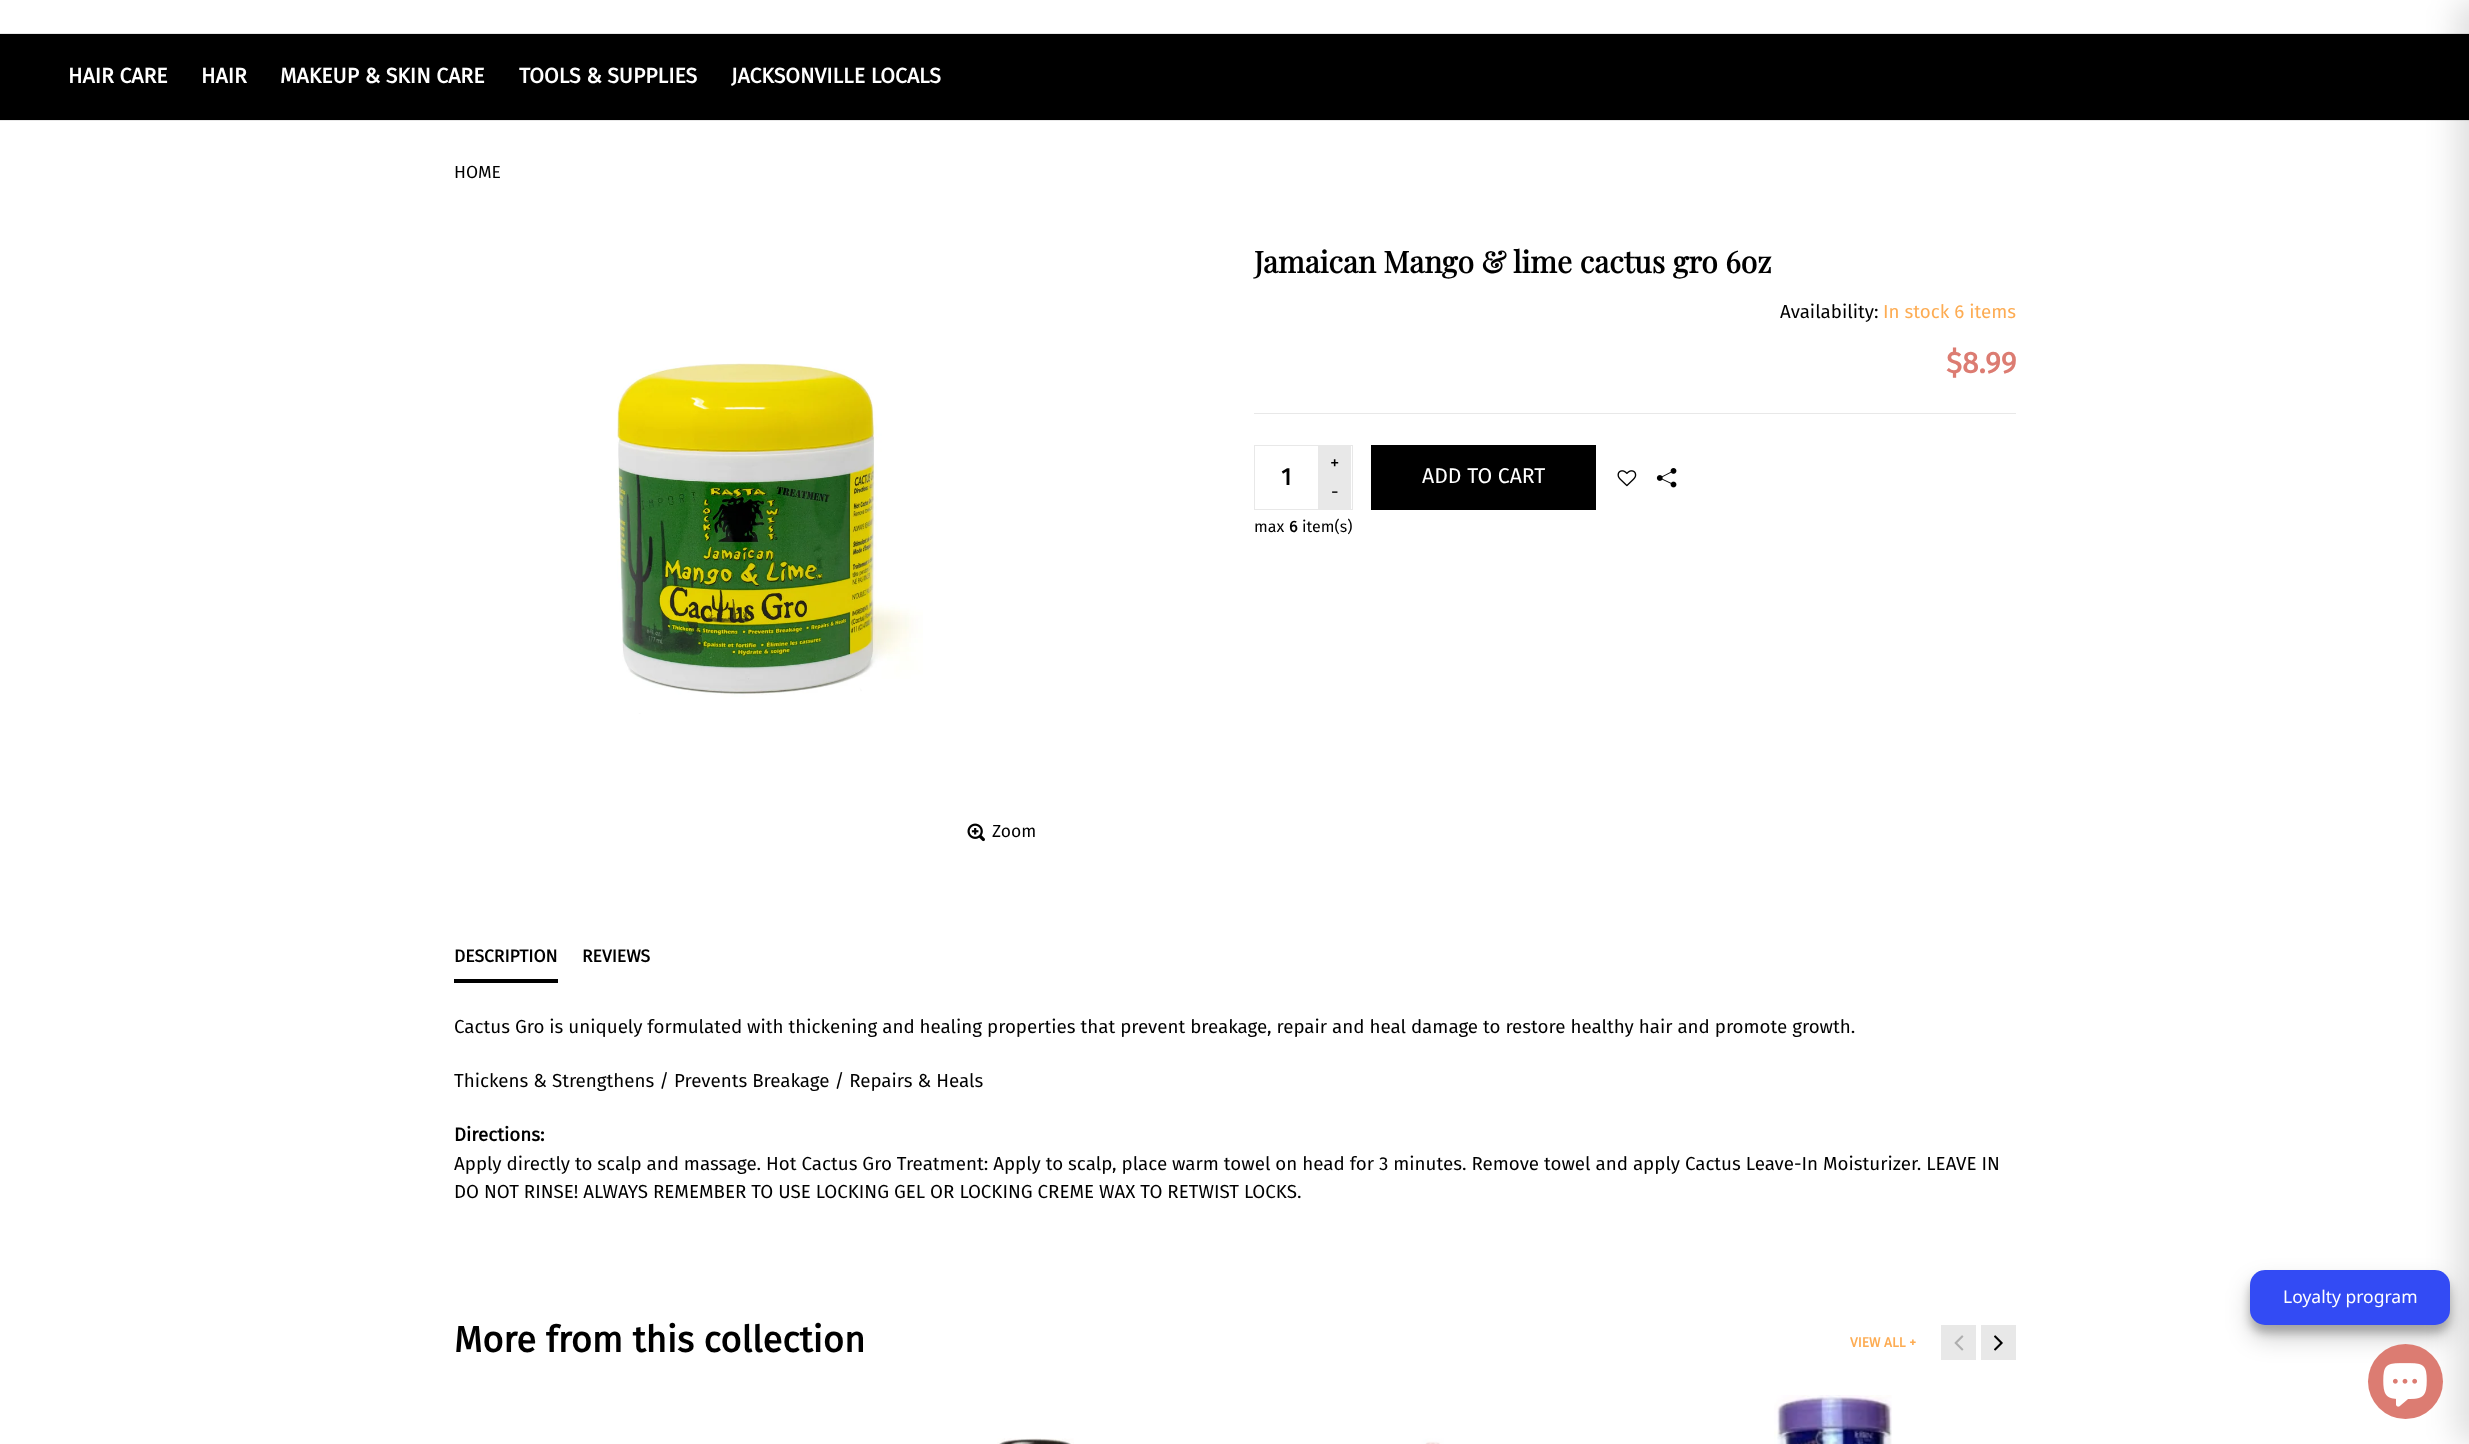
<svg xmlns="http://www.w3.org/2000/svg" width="2469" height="1444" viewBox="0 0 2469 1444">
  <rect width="100%" height="100%" fill="rgb(255,255,255)"/>
  <rect x="0" y="33" width="2469" height="1" fill="rgb(232,232,232)"/>
  <rect x="0" y="34" width="2469" height="86" fill="rgb(0,0,0)"/>
  <g font-family="Fira Sans" font-size="21.25" font-weight="bold" fill="rgb(255,255,255)">
    <text x="68" y="83">HAIR CARE</text>
    <text x="201" y="83">HAIR</text>
    <text x="280" y="83">MAKEUP &amp; SKIN CARE</text>
    <text x="519" y="83">TOOLS &amp; SUPPLIES</text>
    <text x="731" y="83">JACKSONVILLE LOCALS</text>
  </g>
  <rect x="0" y="120" width="2469" height="1" fill="rgb(232,232,232)"/>
  <text x="454" y="178" font-family="Fira Sans" font-size="17.5" fill="rgb(0,0,0)">HOME</text>
  <text x="1254" y="273" font-family="Playfair Display" font-size="30" font-weight="bold" fill="rgb(0,0,0)">Jamaican Mango &amp; lime cactus gro 6oz</text>
  <text x="1780" y="318" font-family="Fira Sans" font-size="18.75" fill="rgb(0,0,0)">Availability:</text>
  <text x="1883" y="318" font-family="Fira Sans" font-size="18.75" fill="rgb(253,172,83)">In stock 6 items</text>
  <text x="1946" y="373" font-family="Fira Sans" font-size="30" font-weight="bold" fill="rgb(220,124,114)">$8.99</text>
  <rect x="1254" y="413" width="762" height="1" fill="rgb(232,232,232)"/>
  <rect x="1254.5" y="445.5" width="98" height="64" fill="none" stroke="rgb(232,232,232)"/>
  <rect x="1318" y="446" width="33" height="63" fill="rgb(232,232,232)"/>
  <text x="1330" y="469" font-family="Fira Sans" font-size="18.75" fill="rgb(0,0,0)">+</text>
  <text x="1281" y="485" font-family="Fira Sans" font-size="24" font-weight="bold" fill="rgb(0,0,0)">1</text>
  <text x="1331" y="498" font-family="Fira Sans" font-size="18.75" fill="rgb(0,0,0)">-</text>
  <text x="1254" y="532" font-family="Fira Sans" font-size="16" fill="rgb(0,0,0)">max</text>
  <text x="1289" y="532" font-family="Fira Sans" font-size="16" font-weight="bold" fill="rgb(0,0,0)">6</text>
  <text x="1302" y="532" font-family="Fira Sans" font-size="16" fill="rgb(0,0,0)">item(s)</text>
  <rect x="1371" y="445" width="225" height="65" fill="rgb(0,0,0)"/>
  <text x="1422" y="483" font-family="Fira Sans" font-size="21.25" fill="rgb(255,255,255)">ADD TO CART</text>
  <image x="1617" y="470" width="20" height="17" href="pic1.png"/>
  <image x="1656" y="468" width="21" height="20" href="pic2.png"/>
  <image x="617" y="363" width="306" height="351" href="pic3.png"/>
  <image x="967" y="823" width="18" height="19" href="pic4.png"/>
  <text x="992" y="837" font-family="Fira Sans" font-size="17.5" fill="rgb(0,0,0)">Zoom</text>
  <text x="454" y="962" font-family="Fira Sans" font-size="17.5" font-weight="bold" fill="rgb(0,0,0)">DESCRIPTION</text>
  <rect x="454" y="979" width="104" height="4" fill="rgb(0,0,0)"/>
  <text x="582" y="962" font-family="Fira Sans" font-size="17.5" font-weight="bold" fill="rgb(0,0,0)">REVIEWS</text>
  <g font-family="Fira Sans" font-size="18.75" fill="rgb(0,0,0)">
    <text x="454" y="1033">Cactus Gro is uniquely formulated with thickening and healing properties that prevent breakage, repair and heal damage to restore healthy hair and promote growth.</text>
    <text x="454" y="1087">Thickens &amp; Strengthens / Prevents Breakage / Repairs &amp; Heals</text>
  </g>
  <text x="454" y="1141" font-family="Fira Sans" font-size="18.75" font-weight="bold" fill="rgb(0,0,0)">Directions:</text>
  <g font-family="Fira Sans" font-size="18.75" fill="rgb(0,0,0)">
    <text>
      <tspan x="454" y="1170">Apply directly to scalp and massage. Hot Cactus Gro Treatment: Apply to scalp, place warm towel on head for 3 minutes. Remove towel and apply Cactus Leave-In Moisturizer. LEAVE IN</tspan>
      <tspan x="454" y="1198">DO NOT RINSE! ALWAYS REMEMBER TO USE LOCKING GEL OR LOCKING CREME WAX TO RETWIST LOCKS.</tspan>
    </text>
  </g>
  <text x="454" y="1352" font-family="Fira Sans" font-size="36.25" font-weight="bold" fill="rgb(0,0,0)">More from this collection</text>
  <text x="1850" y="1347" font-family="Fira Sans" font-size="13.75" font-weight="bold" fill="rgb(253,172,83)">VIEW ALL +</text>
  <rect x="1941" y="1325" width="35" height="35" fill="rgb(232,232,232)"/>
  <image x="1954" y="1335" width="10" height="16" href="pic5.png"/>
  <rect x="1981" y="1325" width="35" height="35" fill="rgb(232,232,232)"/>
  <image x="1994" y="1335" width="9" height="16" href="pic6.png"/>
  <image x="997" y="1438" width="77" height="6" href="pic7.png"/>
  <image x="1421" y="1438" width="23" height="6" href="pic8.png"/>
  <image x="1774" y="1395" width="118" height="49" href="pic9.png"/>
  <rect x="2250" y="1278" width="200" height="55" rx="15" fill="rgba(0,0,0,0.23)" filter="blur(4px)"/>
  <rect x="2250" y="1283" width="200" height="55" rx="15" fill="rgba(0,0,0,0.19)" filter="blur(12.5px)"/>
  <rect x="2455" y="0" width="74" height="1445" rx="15" fill="rgba(0,0,0,0.12)" filter="blur(15px)"/>
  <rect x="2250" y="1270" width="200" height="55" rx="15" fill="rgb(51,75,244)"/>
  <text x="2283" y="1303" font-family="Noto Sans" font-size="17.5" fill="rgb(255,255,255)">Loyalty program</text>
  <circle cx="2405.5" cy="1381.5" r="37.5" fill="rgb(220,124,114)"/>
  <image x="2383" y="1363" width="44" height="44" href="pic10.png"/>
</svg>
